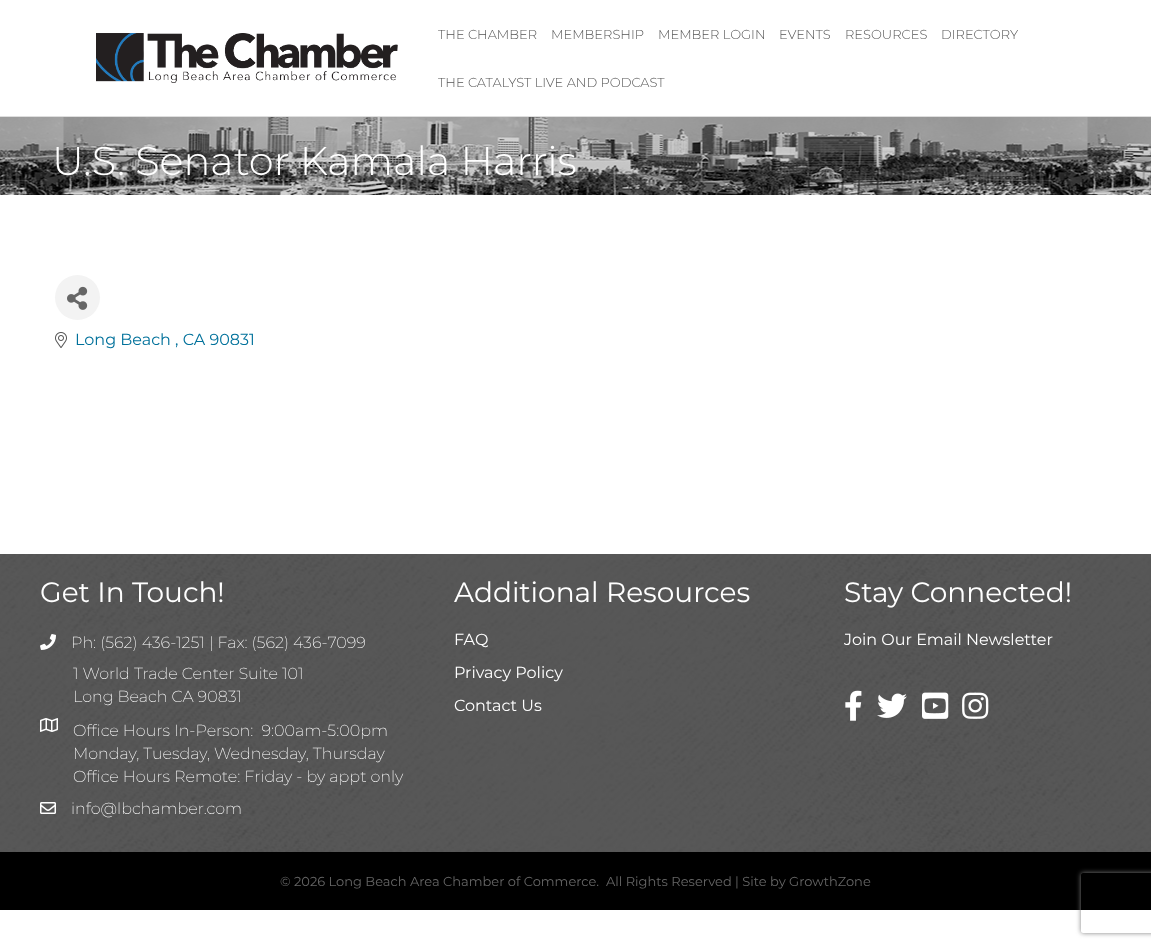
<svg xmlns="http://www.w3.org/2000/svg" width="1151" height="947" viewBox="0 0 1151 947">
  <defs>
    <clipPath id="clip1"><path d="M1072 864H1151V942H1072ZM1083 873H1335C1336 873 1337 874 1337 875V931C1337 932 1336 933 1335 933H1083C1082 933 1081 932 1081 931V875C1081 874 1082 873 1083 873Z" clip-rule="evenodd"/></clipPath>
  </defs>
  <rect width="100%" height="100%" fill="rgb(255,255,255)"/>
  <rect x="0" y="116" width="1151" height="1" fill="rgb(222,222,222)"/>
  <image x="96" y="33" width="302" height="50" href="pic1.png"/>
  <g font-family="Montserrat" font-size="13" font-weight="300" fill="rgb(85,85,85)">
    <text x="438" y="39">THE CHAMBER</text>
    <text x="551" y="39">MEMBERSHIP</text>
    <text x="658" y="39">MEMBER LOGIN</text>
    <text x="779" y="39">EVENTS</text>
    <text x="845" y="39">RESOURCES</text>
    <text x="941" y="39">DIRECTORY</text>
    <text x="438" y="87">THE CATALYST LIVE AND PODCAST</text>
  </g>
  <image x="0" y="117" width="1151" height="78" href="pic2.png"/>
  <text x="52" y="175" font-family="Montserrat" font-size="40" font-weight="300" fill="rgb(255,255,255)">U.S. Senator Kamala Harris</text>
  <circle cx="77.5" cy="297.5" r="22.5" fill="rgb(243,243,243)"/>
  <image x="67" y="286" width="21" height="24" href="pic3.png"/>
  <image x="55" y="332" width="12" height="16" href="pic4.png"/>
  <text x="75" y="345" font-family="Montserrat" font-size="16" fill="rgb(0,113,155)">Long Beach , CA 90831</text>
  <image x="0" y="554" width="1151" height="298" href="pic5.png"/>
  <text x="40" y="602" font-family="Montserrat" font-size="28" fill="rgb(255,255,255)">Get In Touch!</text>
  <image x="40" y="634" width="16" height="16" href="pic6.png"/>
  <text x="71" y="648" font-family="Montserrat" font-size="16" font-weight="200" fill="rgb(255,255,255)">Ph: (562) 436-1251 | Fax: (562) 436-7099</text>
  <image x="40" y="718" width="18" height="14" href="pic7.png"/>
  <g font-family="Montserrat" font-size="16" font-weight="200" fill="rgb(255,255,255)">
    <text>
      <tspan x="73" y="679">1 World Trade Center Suite 101</tspan>
      <tspan x="73" y="702">Long Beach CA 90831</tspan>
    </text>
    <text xml:space="preserve"><tspan x="73" y="736">Office Hours In-Person:  9:00am-5:00pm</tspan><tspan x="73" y="759">Monday, Tuesday, Wednesday, Thursday</tspan><tspan x="73" y="782">Office Hours Remote: Friday - by appt only</tspan></text>
  </g>
  <image x="40" y="802" width="16" height="12" href="pic8.png"/>
  <text x="71" y="814" font-family="Montserrat" font-size="16" font-weight="200" fill="rgb(255,255,255)">info@lbchamber.com</text>
  <text x="454" y="602" font-family="Montserrat" font-size="28" fill="rgb(255,255,255)">Additional Resources</text>
  <g font-family="Montserrat" font-size="16" fill="rgb(255,255,255)">
    <text x="454" y="645">FAQ</text>
    <text x="454" y="678">Privacy Policy</text>
    <text x="454" y="711">Contact Us</text>
  </g>
  <text x="844" y="602" font-family="Montserrat" font-size="28" fill="rgb(255,255,255)">Stay Connected!</text>
  <text x="844" y="645" font-family="Montserrat" font-size="16" fill="rgb(255,255,255)">Join Our Email Newsletter</text>
  <image x="845" y="690" width="17" height="31" href="pic9.png"/>
  <image x="877" y="693" width="30" height="25" href="pic10.png"/>
  <image x="922" y="692" width="27" height="27" href="pic11.png"/>
  <image x="962" y="692" width="27" height="27" href="pic12.png"/>
  <rect x="0" y="852" width="1151" height="58" fill="rgb(0,0,0)"/>
  <g font-family="Montserrat" font-size="13" fill="rgb(102,102,102)">
    <text x="280" y="886">© 2026 Long Beach Area Chamber of Commerce.</text>
    <text x="606" y="886">All Rights Reserved | Site by GrowthZone</text>
  </g>
  <g clip-path="url(#clip1)">
    <rect x="1081" y="873" width="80" height="60" rx="2" fill="rgb(128,128,128)" filter="blur(2.5px)"/>
  </g>
</svg>
